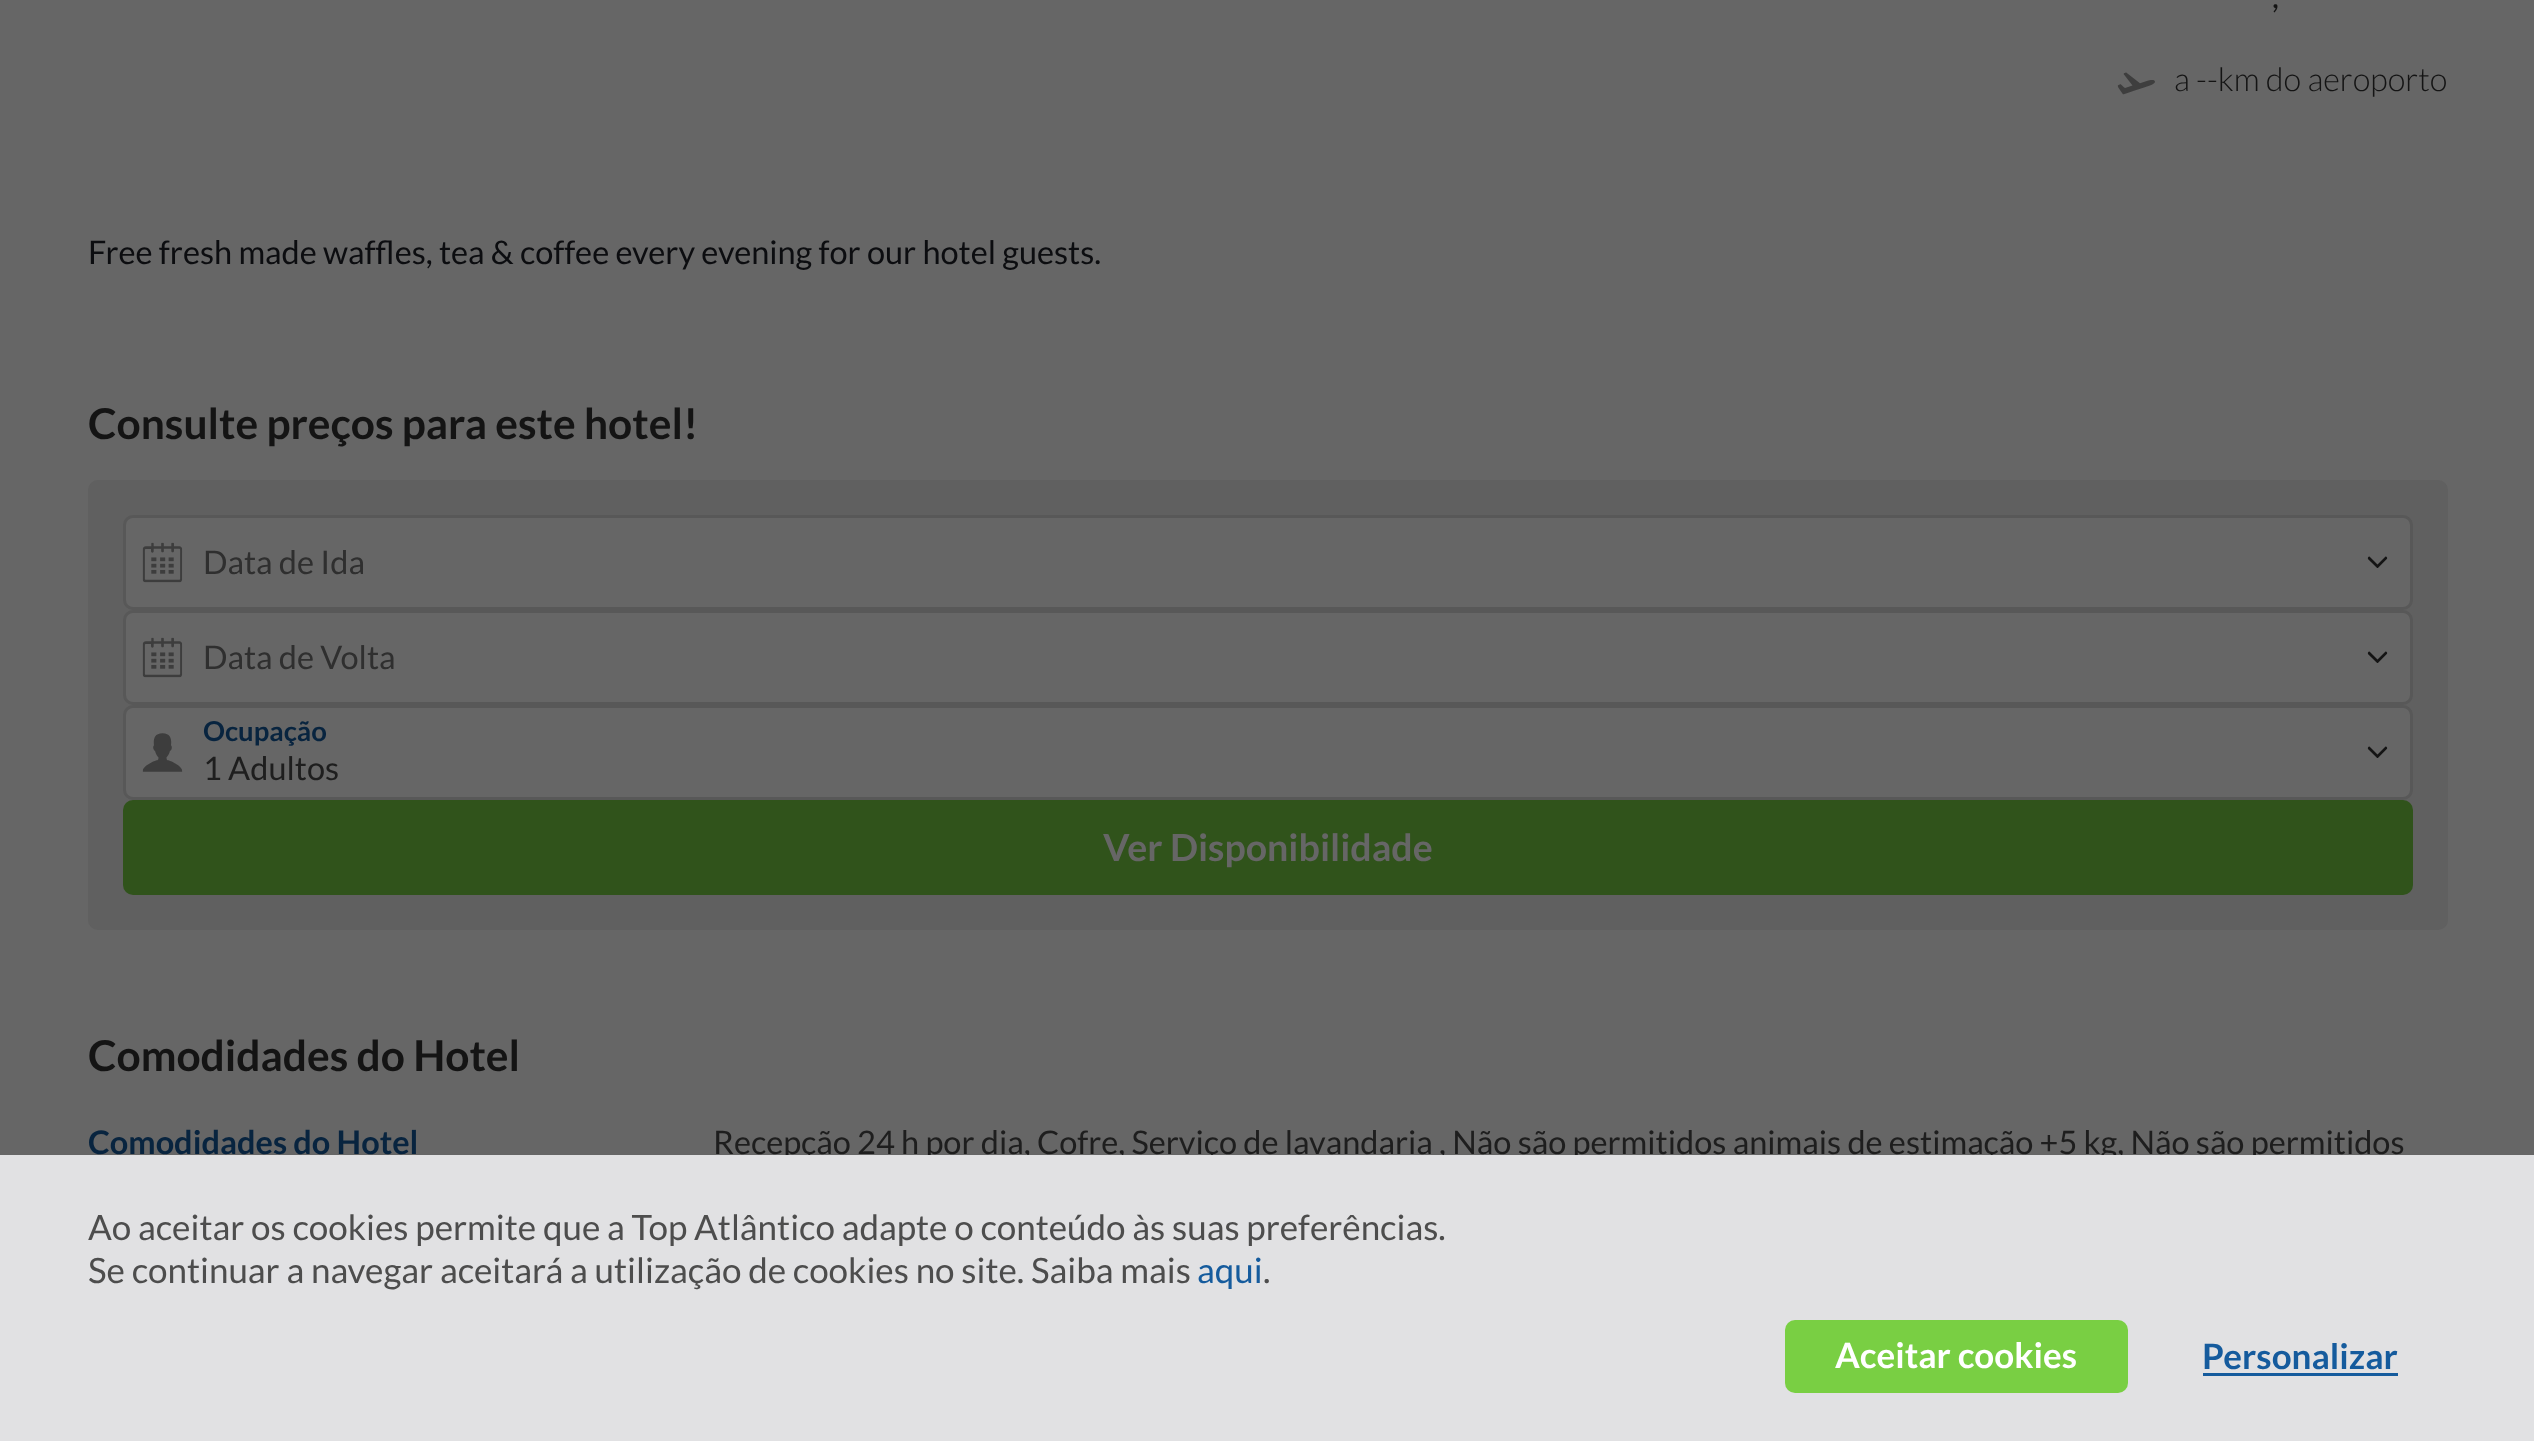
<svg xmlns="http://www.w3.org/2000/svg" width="2534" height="1441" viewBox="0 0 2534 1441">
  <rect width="100%" height="100%" fill="rgb(102,102,102)"/>
  <text x="2272" y="8" font-family="Lato" font-size="32.5" fill="rgb(20,20,20)">,</text>
  <image x="2117" y="72" width="38" height="23" href="pic1.png"/>
  <text x="2174" y="91" font-family="Lato" font-size="32.5" font-weight="300" fill="rgb(20,20,20)">a --km do aeroporto</text>
  <text x="88" y="264" font-family="Lato" font-size="32.5" fill="rgb(12,13,16)">Free fresh made waffles, tea &amp; coffee every evening for our hotel guests.</text>
  <text x="88" y="439" font-family="Lato" font-size="42.5" font-weight="bold" fill="rgb(20,20,20)">Consulte preços para este hotel!</text>
  <rect x="88" y="480" width="2360" height="450" rx="10" fill="rgb(96,96,96)"/>
  <rect x="124.5" y="516.5" width="2287" height="92" rx="8.5" fill="rgb(102,102,102)" stroke="rgb(88,88,88)" stroke-width="3"/>
  <image x="142" y="542" width="41" height="41" href="pic2.png"/>
  <text x="203" y="574" font-family="Lato" font-size="32.5" fill="rgb(47,47,47)">Data de Ida</text>
  <image x="2367" y="556" width="21" height="12" href="pic3.png"/>
  <rect x="124.5" y="611.5" width="2287" height="92" rx="8.5" fill="rgb(102,102,102)" stroke="rgb(88,88,88)" stroke-width="3"/>
  <image x="142" y="637" width="41" height="41" href="pic2.png"/>
  <text x="203" y="669" font-family="Lato" font-size="32.5" fill="rgb(47,47,47)">Data de Volta</text>
  <image x="2367" y="651" width="21" height="12" href="pic3.png"/>
  <rect x="124.5" y="706.5" width="2287" height="92" rx="8.5" fill="rgb(102,102,102)" stroke="rgb(88,88,88)" stroke-width="3"/>
  <image x="142" y="733" width="41" height="39" href="pic4.png"/>
  <text x="203" y="741" font-family="Lato" font-size="27.5" font-weight="bold" fill="rgb(8,36,63)">Ocupação</text>
  <image x="2367" y="746" width="21" height="12" href="pic5.png"/>
  <text x="203" y="780" font-family="Lato" font-size="32.5" fill="rgb(30,30,30)">1 Adultos</text>
  <rect x="123" y="800" width="2290" height="95" rx="10" fill="rgb(48,83,27)"/>
  <text x="1103" y="861" font-family="Lato" font-size="37.5" font-weight="bold" fill="rgb(102,102,102)">Ver Disponibilidade</text>
  <text x="88" y="1071" font-family="Lato" font-size="42.5" font-weight="bold" fill="rgb(20,20,20)">Comodidades do Hotel</text>
  <text x="88" y="1154" font-family="Lato" font-size="32.5" font-weight="bold" fill="rgb(8,36,63)">Comodidades do Hotel</text>
  <text x="713" y="1154" font-family="Lato" font-size="32.5" fill="rgb(30,30,30)">Recepção 24 h por dia, Cofre, Serviço de lavandaria , Não são permitidos animais de estimação +5 kg, Não são permitidos</text>
  <rect x="0" y="1155" width="2534" height="286" fill="rgb(225,225,227)"/>
  <g font-family="Lato" font-size="35" fill="rgb(77,77,77)">
    <text>
      <tspan x="88" y="1240">Ao aceitar os cookies permite que a Top Atlântico adapte o conteúdo às suas preferências.</tspan>
      <tspan x="88" y="1283">Se continuar a navegar aceitará a utilização de cookies no site. Saiba mais</tspan>
    </text>
  </g>
  <text x="1197" y="1283" font-family="Lato" font-size="35" fill="rgb(21,91,157)">aqui</text>
  <text x="1263" y="1283" font-family="Lato" font-size="35" fill="rgb(77,77,77)">.</text>
  <rect x="1785" y="1320" width="343" height="73" rx="10" fill="rgb(121,207,67)"/>
  <text x="1835" y="1368" font-family="Lato" font-size="35" font-weight="bold" fill="rgb(255,255,255)">Aceitar cookies</text>
  <text x="2202" y="1369" font-family="Lato" font-size="35" font-weight="bold" fill="rgb(21,91,157)">Personalizar</text>
  <rect x="2203" y="1373" width="195" height="3" fill="rgb(21,91,157)"/>
</svg>
